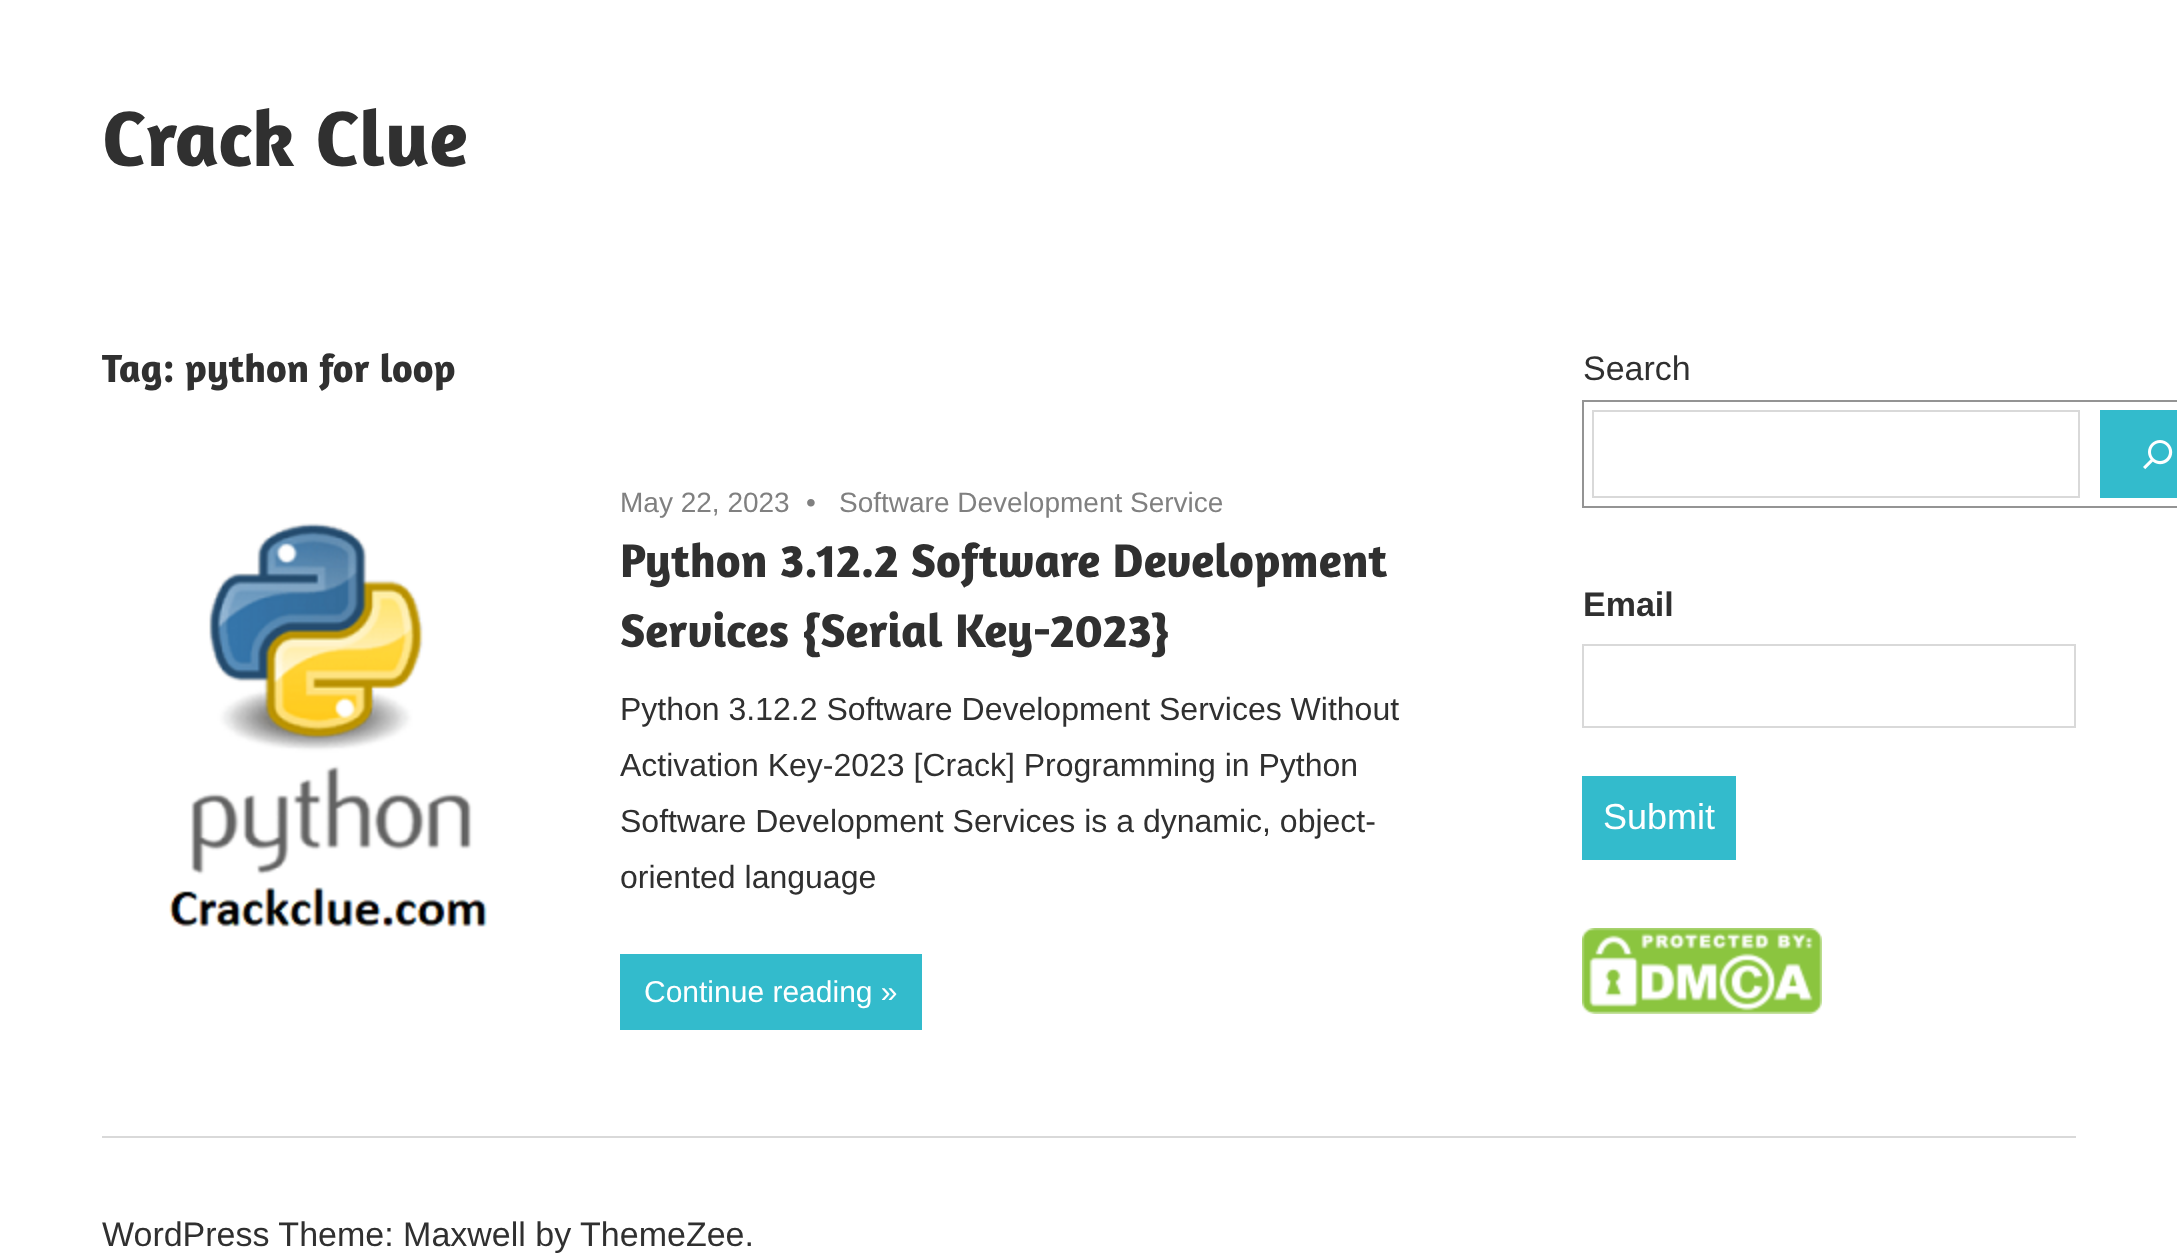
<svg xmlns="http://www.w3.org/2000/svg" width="2177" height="1258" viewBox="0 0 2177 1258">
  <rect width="100%" height="100%" fill="rgb(255,255,255)"/>
  <text x="102" y="166" font-family="Amaranth" font-size="80" font-weight="bold" fill="rgb(48,48,48)">Crack Clue</text>
  <text x="102" y="382" font-family="Amaranth" font-size="40" font-weight="bold" fill="rgb(48,48,48)">Tag: python for loop</text>
  <image x="169" y="523" width="318" height="404" href="pic1.png"/>
  <g font-family="Liberation Sans" font-size="28" fill="rgb(128,128,128)">
    <text x="620" y="512">May 22, 2023</text>
    <text x="806" y="512">•</text>
    <text x="839" y="512">Software Development Service</text>
  </g>
  <g font-family="Amaranth" font-size="48" font-weight="bold" fill="rgb(48,48,48)">
    <text>
      <tspan x="620" y="577">Python 3.12.2 Software Development</tspan>
      <tspan x="620" y="647">Services {Serial Key-2023}</tspan>
    </text>
  </g>
  <g font-family="Liberation Sans" font-size="32" fill="rgb(48,48,48)">
    <text>
      <tspan x="620" y="720">Python 3.12.2 Software Development Services Without</tspan>
      <tspan x="620" y="776">Activation Key-2023 [Crack] Programming in Python</tspan>
      <tspan x="620" y="832">Software Development Services is a dynamic, object-</tspan>
      <tspan x="620" y="888">oriented language</tspan>
    </text>
  </g>
  <rect x="620" y="954" width="302" height="76" fill="rgb(51,187,204)"/>
  <text x="644" y="1002" font-family="Liberation Sans" font-size="30" fill="rgb(255,255,255)">Continue reading »</text>
  <text x="1583" y="380" font-family="Liberation Sans" font-size="34" fill="rgb(48,48,48)">Search</text>
  <rect x="1583" y="401" width="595" height="106" fill="none" stroke="rgb(148,148,148)" stroke-width="2"/>
  <rect x="1593" y="411" width="486" height="86" fill="none" stroke="rgb(217,217,217)" stroke-width="2"/>
  <rect x="2100" y="410" width="77" height="88" fill="rgb(51,187,204)"/>
  <image x="2143" y="440" width="30" height="30" href="pic2.png"/>
  <text x="1583" y="616" font-family="Liberation Sans" font-size="34" font-weight="bold" fill="rgb(48,48,48)">Email</text>
  <rect x="1583" y="645" width="492" height="82" fill="none" stroke="rgb(217,217,217)" stroke-width="2"/>
  <rect x="1582" y="776" width="154" height="84" fill="rgb(51,187,204)"/>
  <text x="1603" y="829" font-family="Liberation Sans" font-size="36" fill="rgb(255,255,255)">Submit</text>
  <image x="1582" y="928" width="240" height="86" href="pic3.png"/>
  <rect x="102" y="1136" width="1974" height="2" fill="rgb(217,217,217)"/>
  <text x="102" y="1246" font-family="Liberation Sans" font-size="34" fill="rgb(48,48,48)">WordPress Theme: Maxwell by ThemeZee.</text>
</svg>
